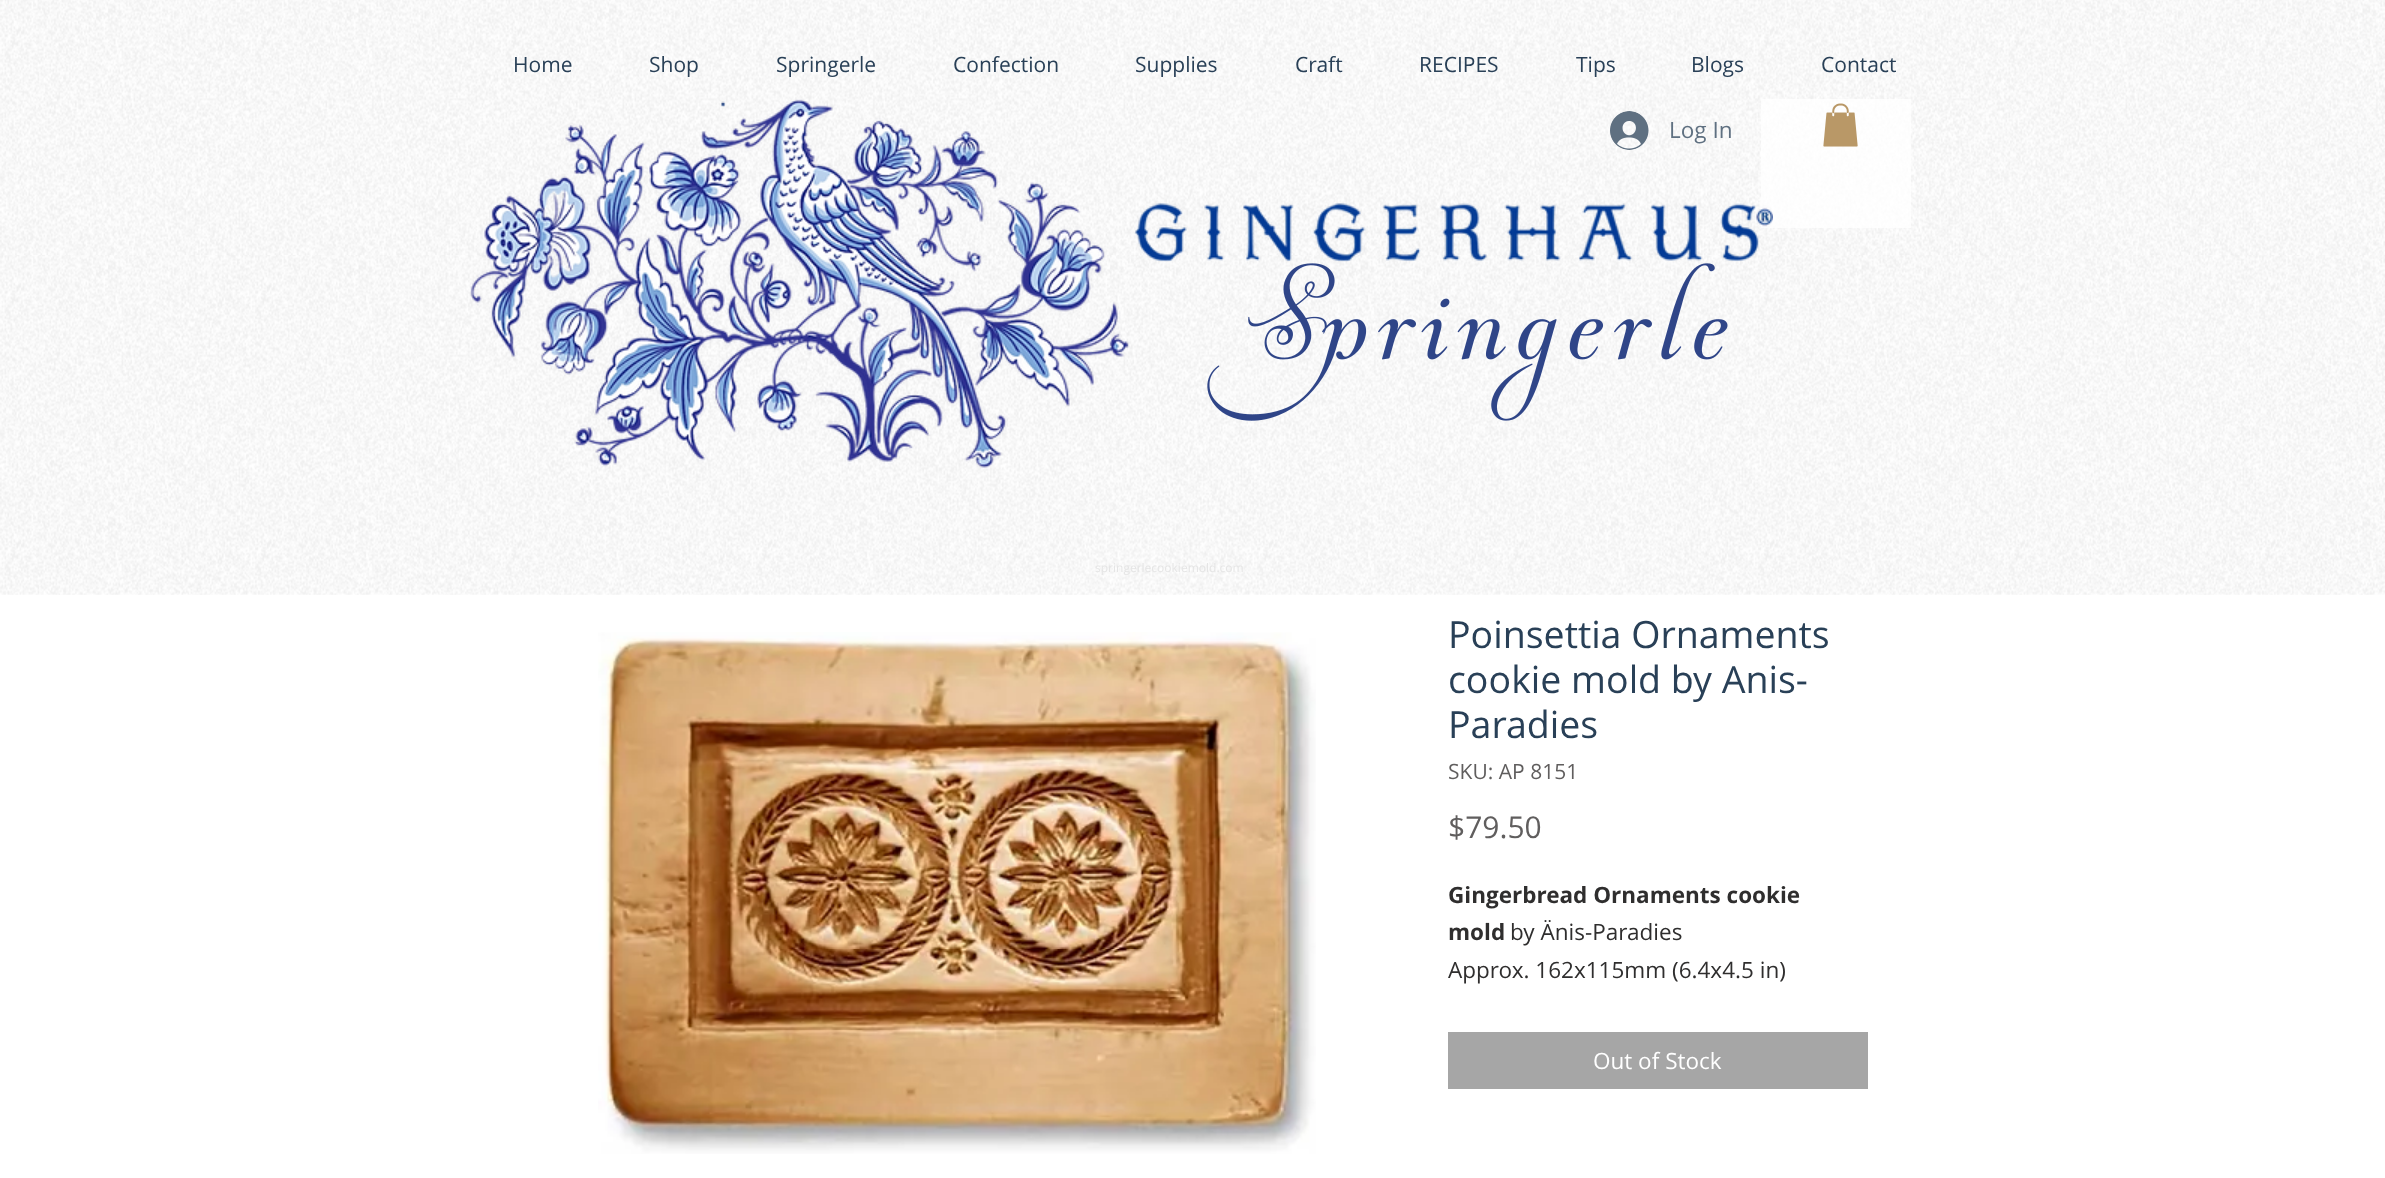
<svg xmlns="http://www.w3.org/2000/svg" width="2385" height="1178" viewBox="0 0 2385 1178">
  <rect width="100%" height="100%" fill="rgb(255,255,255)"/>
  <image x="0" y="0" width="2385" height="595" href="pic1.png"/>
  <g font-family="Open Sans" font-size="21" fill="rgb(41,64,87)">
    <text x="513" y="72">Home</text>
    <text x="649" y="72">Shop</text>
    <text x="776" y="72">Springerle</text>
    <text x="953" y="72">Confection</text>
    <text x="1135" y="72">Supplies</text>
    <text x="1295" y="72">Craft</text>
    <text x="1419" y="72">RECIPES</text>
    <text x="1576" y="72">Tips</text>
    <text x="1691" y="72">Blogs</text>
    <text x="1821" y="72">Contact</text>
  </g>
  <image x="470" y="99" width="659" height="369" href="pic2.png"/>
  <image x="1610" y="111" width="39" height="39" href="pic3.png"/>
  <text x="1669" y="138" font-family="Open Sans" font-size="22.5" fill="rgb(95,112,129)">Log In</text>
  <rect x="1761" y="99" width="150" height="129" fill="rgba(255,255,255,0.79)"/>
  <image x="1823" y="103" width="35" height="44" href="pic4.png"/>
  <image x="1134" y="203" width="639" height="59" href="pic5.png"/>
  <image x="1207" y="263" width="521" height="158" href="pic6.png"/>
  <text x="1095" y="572" font-family="Open Sans" font-size="12" fill="rgb(229,229,229)">springerlecookiemold.com</text>
  <image x="598" y="632" width="718" height="522" href="pic7.png"/>
  <g font-family="Open Sans" font-size="37.5" fill="rgb(41,64,87)">
    <text>
      <tspan x="1448" y="648">Poinsettia Ornaments</tspan>
      <tspan x="1448" y="693">cookie mold by Anis-</tspan>
      <tspan x="1448" y="738">Paradies</tspan>
    </text>
  </g>
  <text x="1448" y="779" font-family="Open Sans" font-size="21" fill="rgb(96,94,94)">SKU: AP 8151</text>
  <text x="1448" y="838" font-family="Open Sans" font-size="30" fill="rgb(96,94,94)">$79.50</text>
  <g font-family="Open Sans" font-size="22.5" font-weight="bold" fill="rgb(47,46,46)">
    <text>
      <tspan x="1448" y="903">Gingerbread Ornaments cookie</tspan>
      <tspan x="1448" y="940">mold</tspan>
    </text>
  </g>
  <g font-family="Open Sans" font-size="22.5" fill="rgb(47,46,46)">
    <text x="1510" y="940">by Änis-Paradies</text>
    <text x="1448" y="978">Approx. 162x115mm (6.4x4.5 in)</text>
  </g>
  <rect x="1448" y="1032" width="420" height="57" fill="rgb(166,166,166)"/>
  <text x="1593" y="1069" font-family="Open Sans" font-size="22.5" fill="rgb(255,255,255)">Out of Stock</text>
</svg>
